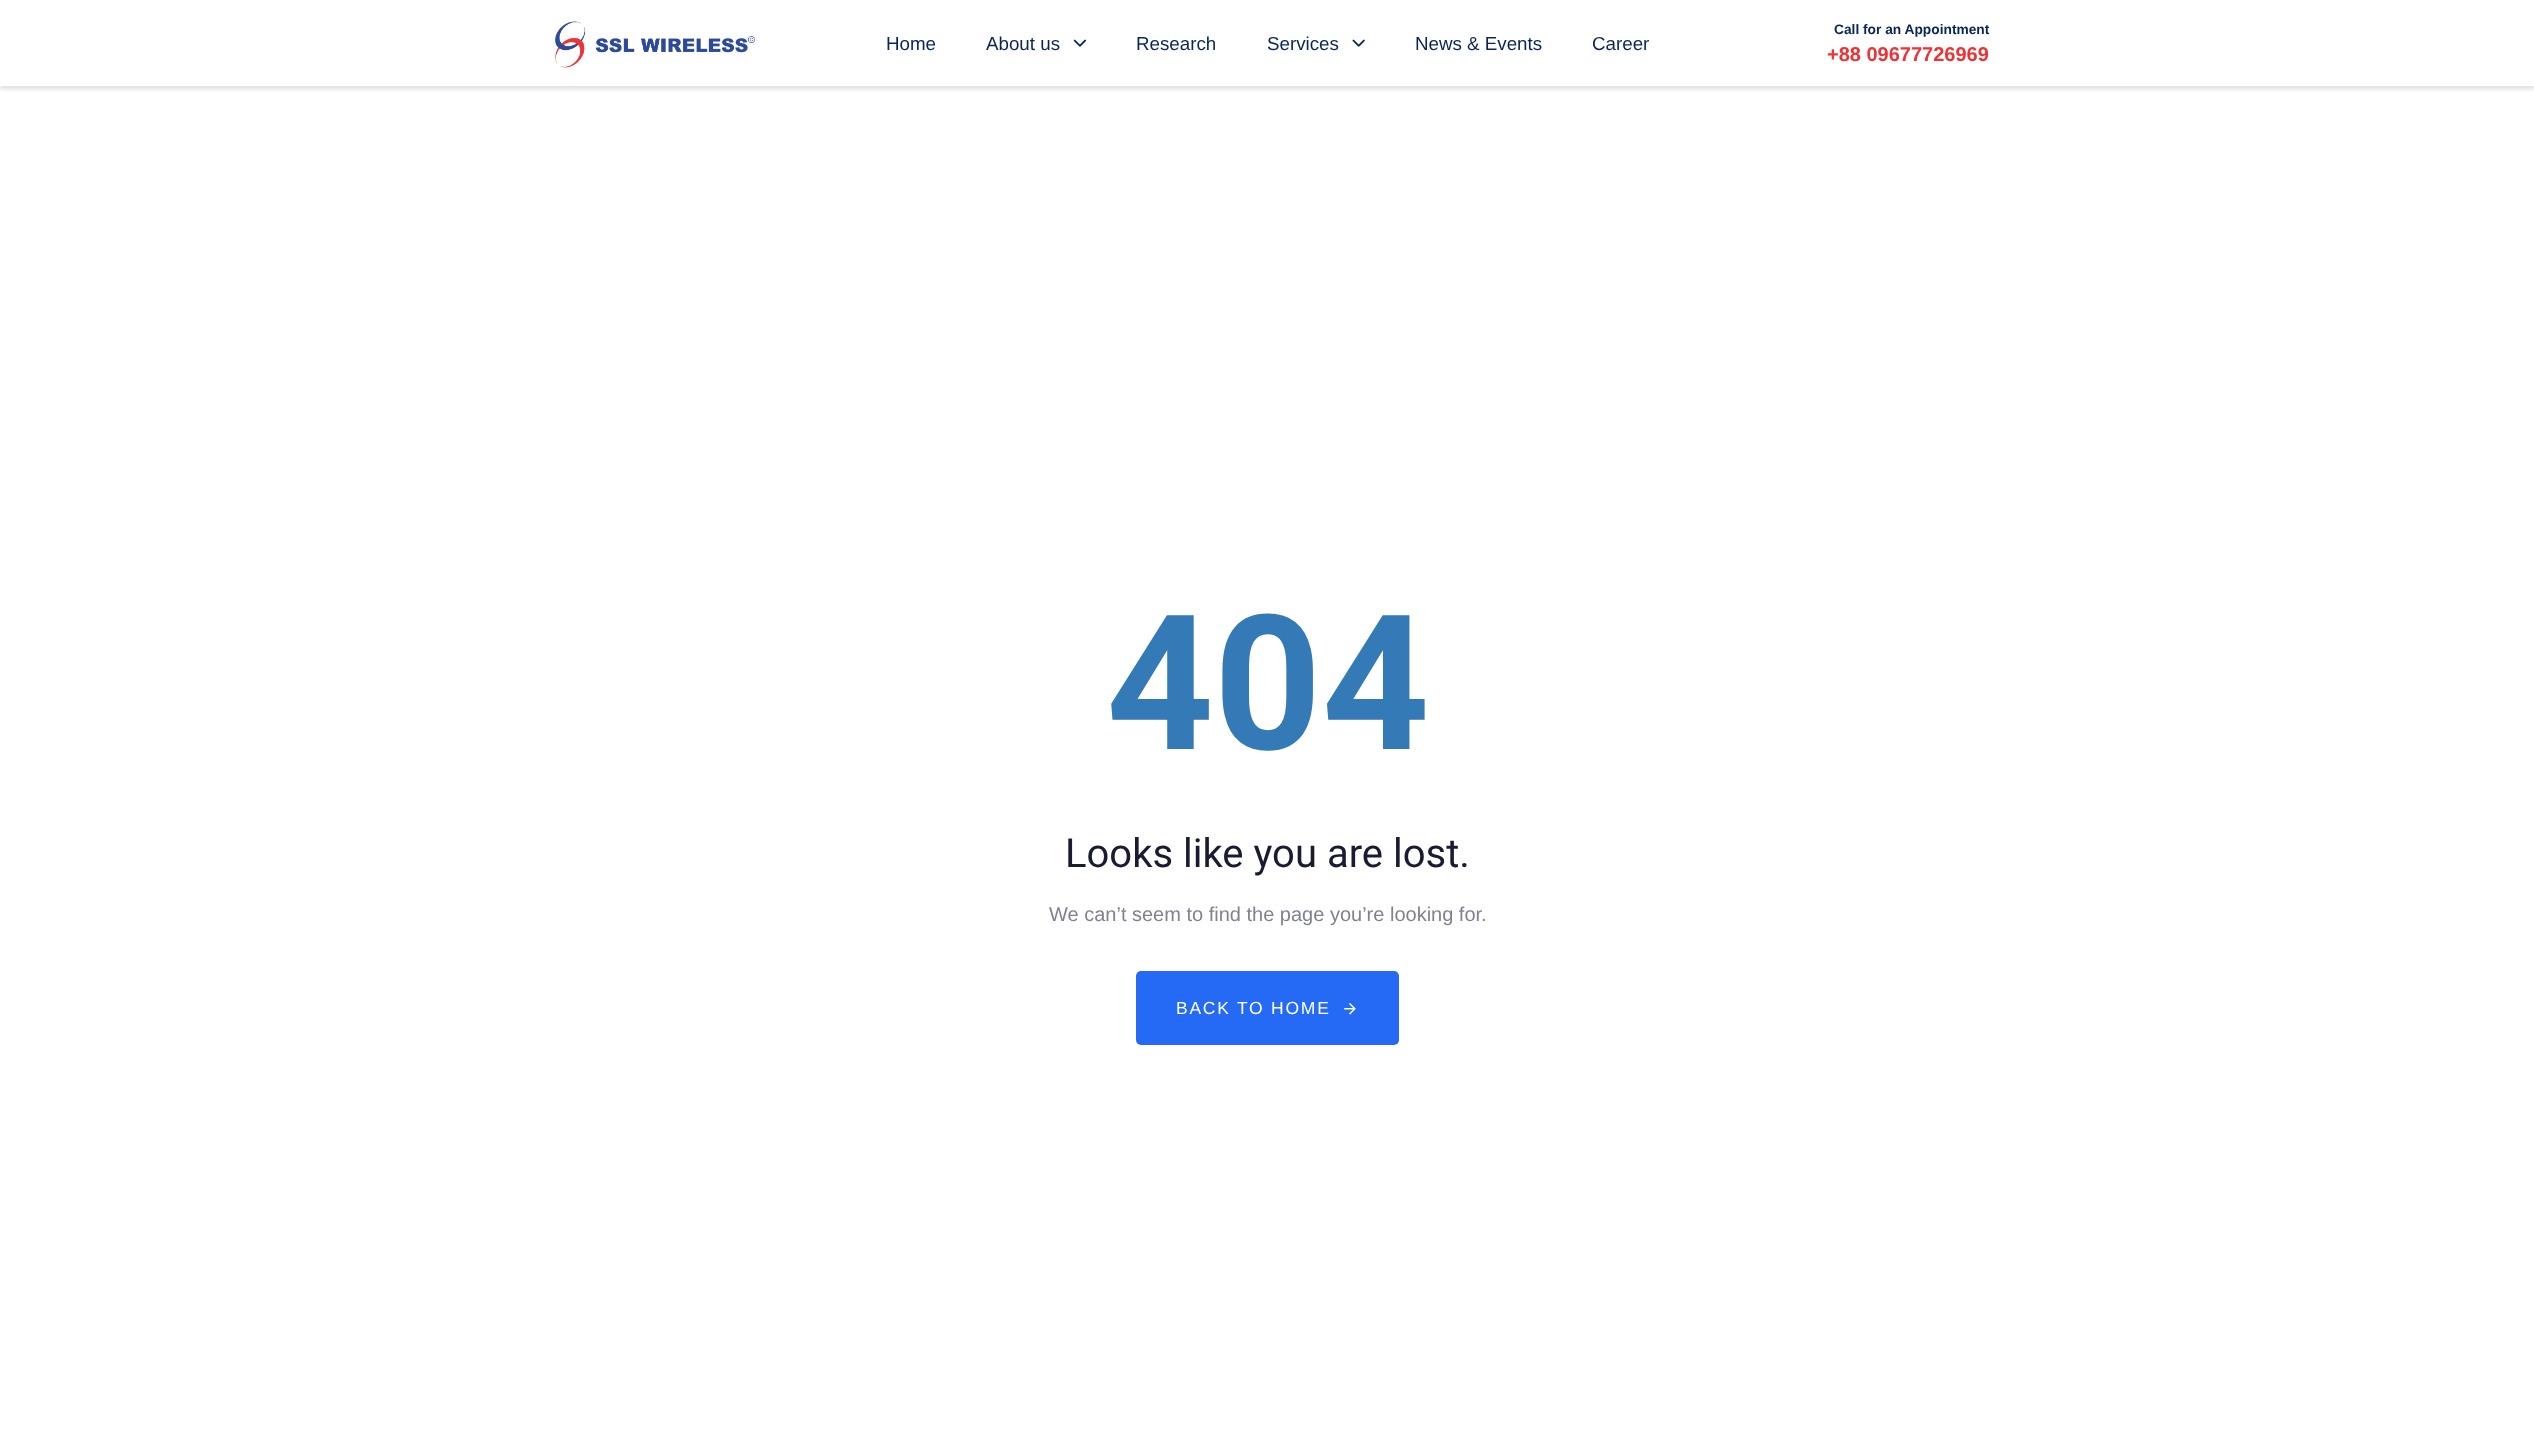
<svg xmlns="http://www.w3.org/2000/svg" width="2534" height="1454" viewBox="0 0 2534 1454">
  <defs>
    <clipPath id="clip1"><rect x="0" y="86" width="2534" height="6"/></clipPath>
  </defs>
  <rect width="100%" height="100%" fill="rgb(255,255,255)"/>
  <g clip-path="url(#clip1)">
    <rect x="0" y="3" width="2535" height="86" fill="rgba(0,0,0,0.13)" filter="blur(2.5px)"/>
  </g>
  <image x="555" y="21" width="200" height="47" href="pic1.png"/>
  <g font-family="Liberation Sans" font-size="18.75" fill="rgb(9,37,88)">
    <text x="886" y="50">Home</text>
    <text x="986" y="50">About us</text>
  </g>
  <image x="1073" y="39" width="13" height="8" href="pic2.png"/>
  <g font-family="Liberation Sans" font-size="18.75" fill="rgb(9,37,88)">
    <text x="1136" y="50">Research</text>
    <text x="1267" y="50">Services</text>
  </g>
  <image x="1352" y="39" width="13" height="8" href="pic3.png"/>
  <g font-family="Liberation Sans" font-size="18.75" fill="rgb(9,37,88)">
    <text x="1415" y="50">News &amp; Events</text>
    <text x="1592" y="50">Career</text>
  </g>
  <text x="1834" y="34" font-family="Liberation Sans" font-size="13.75" font-weight="bold" fill="rgb(9,37,88)">Call for an Appointment</text>
  <text x="1827" y="61" font-family="Liberation Sans" font-size="20" font-weight="bold" fill="rgb(236,51,54)">+88 09677726969</text>
  <text x="1106" y="749" font-family="Roboto" font-size="188" font-weight="bold" fill="rgb(51,122,183)">404</text>
  <text x="1065" y="867" font-family="Roboto" font-size="40" fill="rgb(24,27,49)">Looks like you are lost.</text>
  <text x="1049" y="921" font-family="Liberation Sans" font-size="20" fill="rgb(128,130,145)">We can’t seem to find the page you’re looking for.</text>
  <rect x="1136" y="971" width="263" height="74" rx="5" fill="rgb(36,106,244)"/>
  <text x="1176" y="1014" font-family="Liberation Sans" font-size="17.5" letter-spacing="1.75" fill="rgb(255,255,255)">BACK TO HOME</text>
  <image x="1344" y="1003" width="12" height="12" href="pic4.png"/>
</svg>
